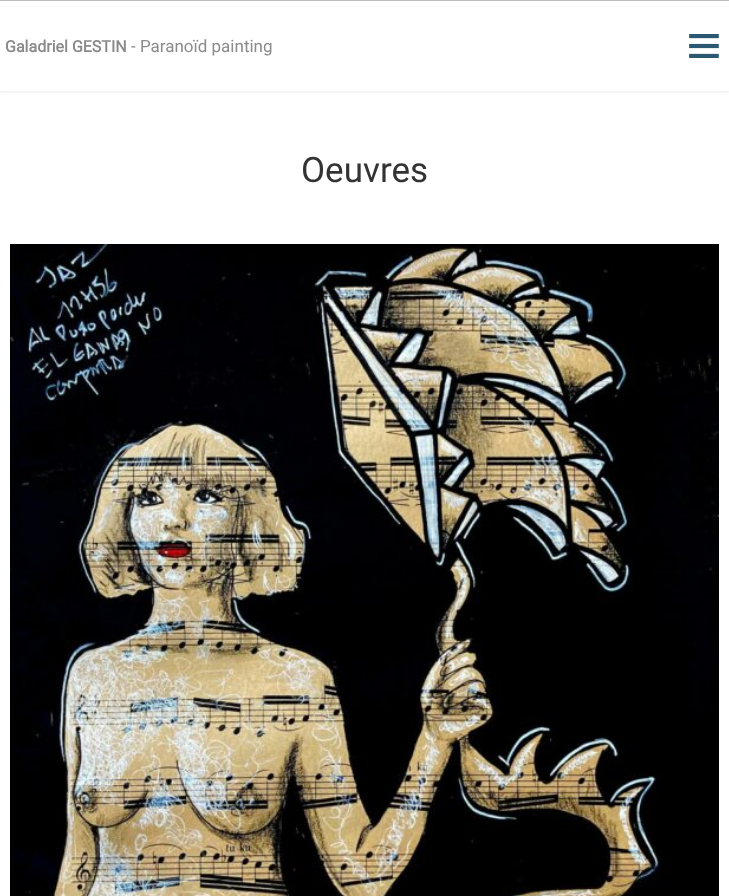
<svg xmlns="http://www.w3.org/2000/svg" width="729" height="896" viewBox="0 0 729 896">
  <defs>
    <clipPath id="clip1"><rect x="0" y="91" width="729" height="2"/></clipPath>
  </defs>
  <rect width="100%" height="100%" fill="rgb(255,255,255)"/>
  <g clip-path="url(#clip1)">
    <rect x="0" y="1" width="729" height="91" fill="rgba(26,26,26,0.1)" filter="blur(1px)"/>
  </g>
  <rect x="0" y="0" width="729" height="1" fill="rgb(188,188,188)"/>
  <text x="5" y="52" font-family="Roboto" font-size="16" font-weight="bold" fill="rgb(138,138,138)">Galadriel GESTIN</text>
  <text x="131" y="52" font-family="Roboto" font-size="17" fill="rgb(138,138,138)">- Paranoïd painting</text>
  <image x="689" y="34" width="30" height="24" href="pic1.png"/>
  <text x="301" y="182" font-family="Roboto" font-size="35" fill="rgb(51,51,51)">Oeuvres</text>
  <image x="10" y="244" width="709" height="652" href="pic2.png"/>
</svg>
